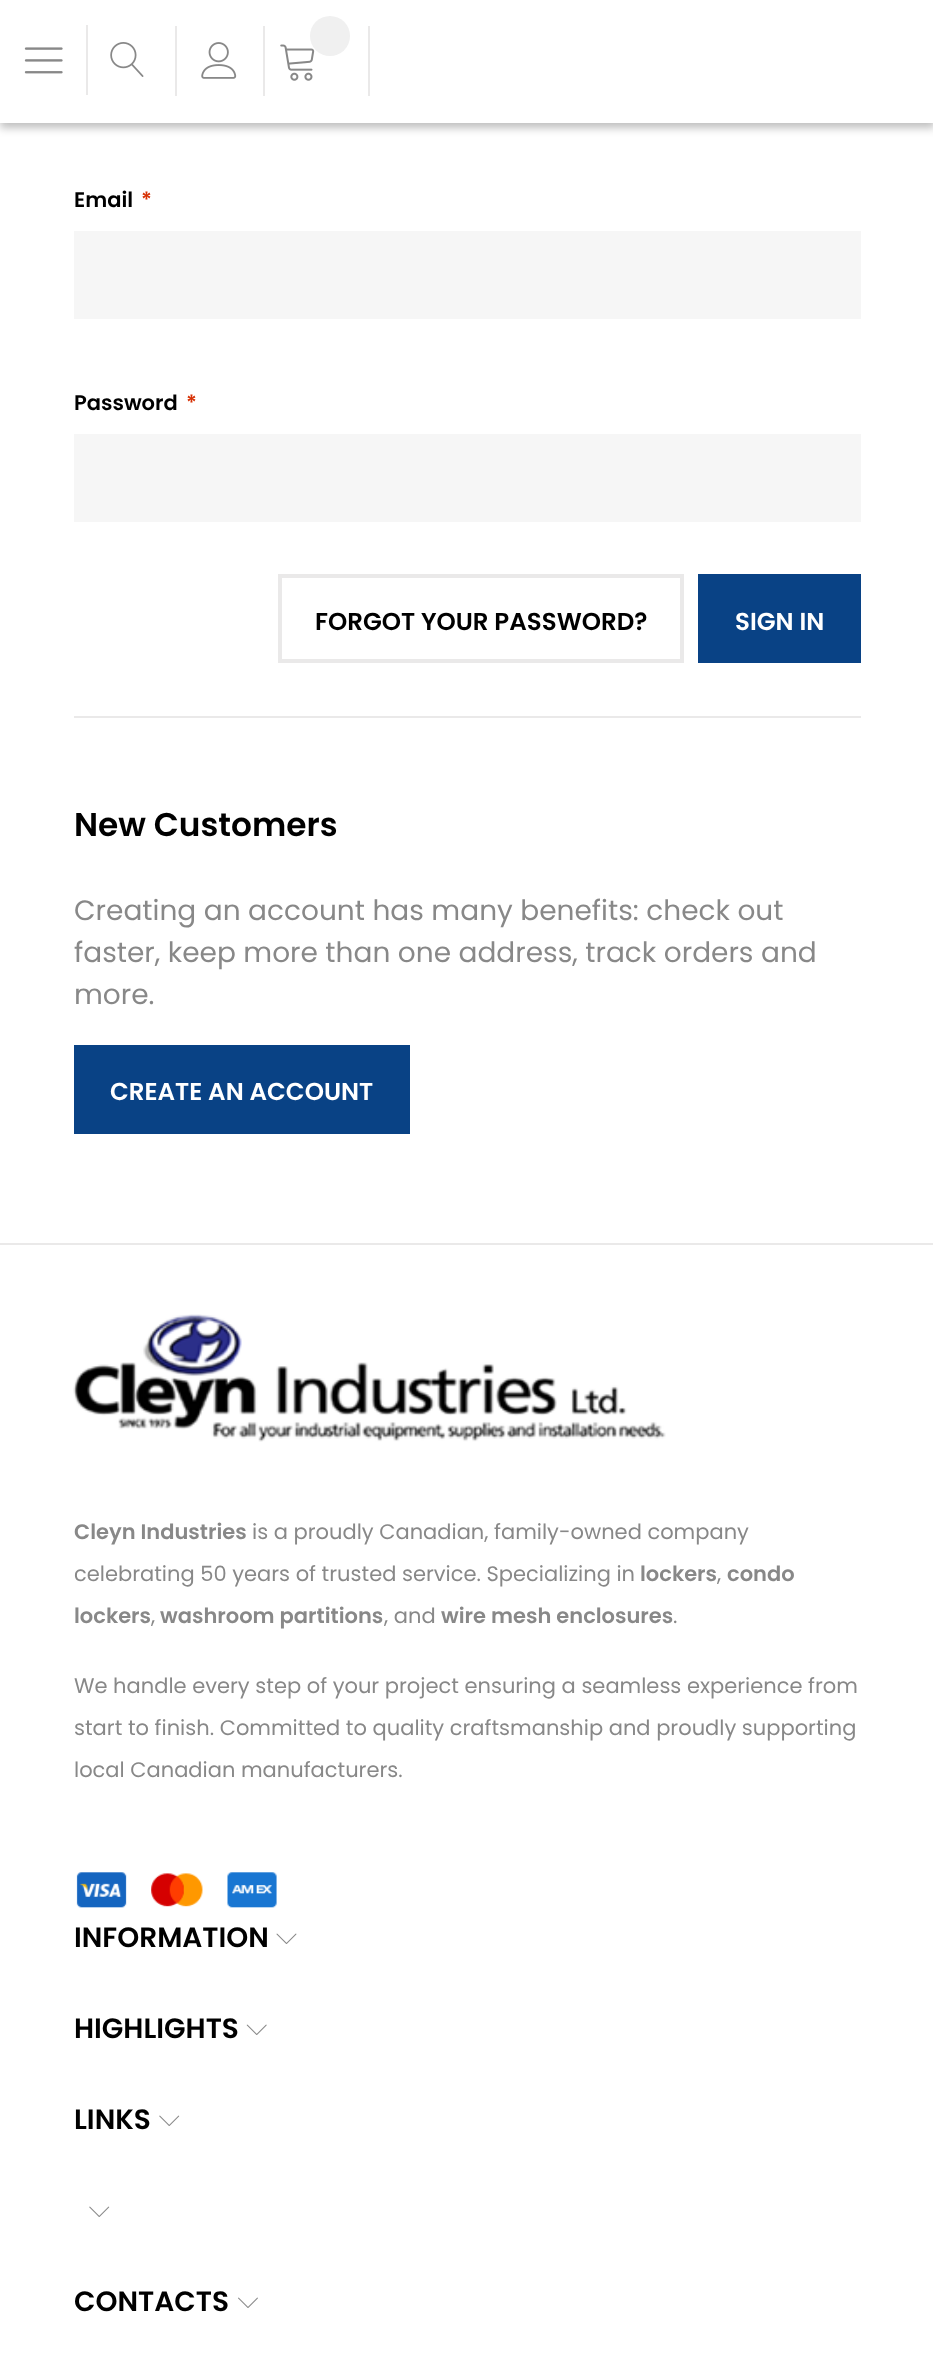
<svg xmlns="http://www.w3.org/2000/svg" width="933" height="2375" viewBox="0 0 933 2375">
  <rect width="100%" height="100%" fill="rgb(255,255,255)"/>
  <rect x="0" y="5" width="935" height="123" fill="rgba(0,0,0,0.25)" filter="blur(4.5px)"/>
  <rect x="0" y="0" width="933" height="123" fill="rgb(255,255,255)"/>
  <rect x="86" y="25" width="2" height="70" fill="rgb(234,233,233)"/>
  <image x="24" y="47" width="39" height="27" href="pic1.png"/>
  <image x="110" y="42" width="34" height="35" href="pic2.png"/>
  <rect x="175" y="26" width="2" height="70" fill="rgb(234,233,233)"/>
  <image x="201" y="42" width="36" height="37" href="pic3.png"/>
  <rect x="368" y="26" width="2" height="70" fill="rgb(234,233,233)"/>
  <rect x="263" y="26" width="2" height="70" fill="rgb(234,233,233)"/>
  <image x="280" y="44" width="35" height="37" href="pic4.png"/>
  <circle cx="330" cy="36" r="20" fill="rgb(240,240,240)"/>
  <rect x="74" y="716" width="787" height="2" fill="rgb(234,233,233)"/>
  <text x="74" y="207" font-family="Poppins" font-size="21" font-weight="600" fill="rgb(0,0,0)">Email</text>
  <text x="141" y="207" font-family="Poppins" font-size="21" font-weight="600" fill="rgb(215,49,5)">*</text>
  <rect x="74" y="231" width="787" height="88" fill="rgb(246,246,246)"/>
  <text x="74" y="410" font-family="Poppins" font-size="21" font-weight="600" fill="rgb(0,0,0)">Password</text>
  <text x="186" y="410" font-family="Poppins" font-size="21" font-weight="600" fill="rgb(215,49,5)">*</text>
  <rect x="74" y="434" width="787" height="88" fill="rgb(246,246,246)"/>
  <rect x="280" y="576" width="402" height="85" fill="none" stroke="rgb(234,233,233)" stroke-width="4"/>
  <text x="315" y="630" font-family="Poppins" font-size="24.5" font-weight="600" fill="rgb(0,0,0)">FORGOT YOUR PASSWORD?</text>
  <rect x="698" y="574" width="163" height="89" fill="rgb(9,66,133)"/>
  <text x="735" y="630" font-family="Poppins" font-size="24.5" font-weight="600" fill="rgb(255,255,255)">SIGN IN</text>
  <text x="74" y="836" font-family="Poppins" font-size="32.75" font-weight="600" fill="rgb(0,0,0)">New Customers</text>
  <g font-family="Poppins" font-size="28" fill="rgb(136,136,136)">
    <text>
      <tspan x="74" y="920">Creating an account has many benefits: check out</tspan>
      <tspan x="74" y="962">faster, keep more than one address, track orders and</tspan>
      <tspan x="74" y="1004">more.</tspan>
    </text>
  </g>
  <rect x="74" y="1045" width="336" height="89" fill="rgb(9,66,133)"/>
  <text x="110" y="1100" font-family="Poppins" font-size="24.5" font-weight="600" fill="rgb(255,255,255)">CREATE AN ACCOUNT</text>
  <rect x="0" y="1243" width="933" height="2" fill="rgb(234,233,233)"/>
  <image x="73" y="1314" width="593" height="128" href="pic5.png"/>
  <text x="74" y="1539" font-family="Poppins" font-size="21" font-weight="600" fill="rgb(136,136,136)">Cleyn Industries</text>
  <g font-family="Poppins" font-size="21" fill="rgb(136,136,136)">
    <text x="252" y="1539">is a proudly Canadian, family-owned company</text>
    <text x="74" y="1581">celebrating 50 years of trusted service. Specializing in</text>
  </g>
  <text x="640" y="1581" font-family="Poppins" font-size="21" font-weight="600" fill="rgb(136,136,136)">lockers</text>
  <text x="717" y="1581" font-family="Poppins" font-size="21" fill="rgb(136,136,136)">,</text>
  <g font-family="Poppins" font-size="21" font-weight="600" fill="rgb(136,136,136)">
    <text x="727" y="1581">condo</text>
    <text x="74" y="1623">lockers</text>
  </g>
  <text x="151" y="1623" font-family="Poppins" font-size="21" fill="rgb(136,136,136)">,</text>
  <text x="160" y="1623" font-family="Poppins" font-size="21" font-weight="600" fill="rgb(136,136,136)">washroom partitions</text>
  <text x="384" y="1623" font-family="Poppins" font-size="21" fill="rgb(136,136,136)">, and</text>
  <text x="441" y="1623" font-family="Poppins" font-size="21" font-weight="600" fill="rgb(136,136,136)">wire mesh enclosures</text>
  <g font-family="Poppins" font-size="21" fill="rgb(136,136,136)">
    <text x="673" y="1623">.</text>
    <text x="74" y="1693">We handle every step of your project ensuring a seamless experience from</text>
    <text x="74" y="1735">start to finish. Committed to quality craftsmanship and proudly supporting</text>
    <text x="74" y="1777">local Canadian manufacturers.</text>
  </g>
  <image x="76" y="1872" width="51" height="36" href="pic6.png"/>
  <image x="151" y="1873" width="52" height="34" href="pic7.png"/>
  <image x="227" y="1872" width="50" height="36" href="pic8.png"/>
  <text x="74" y="1947" font-family="Poppins" font-size="28" font-weight="600" fill="rgb(0,0,0)">INFORMATION</text>
  <image x="276" y="1933" width="21" height="11" href="pic9.png"/>
  <text x="74" y="2038" font-family="Poppins" font-size="28" font-weight="600" fill="rgb(0,0,0)">HIGHLIGHTS</text>
  <image x="246" y="2024" width="21" height="11" href="pic10.png"/>
  <text x="74" y="2129" font-family="Poppins" font-size="28" font-weight="600" fill="rgb(0,0,0)">LINKS</text>
  <image x="159" y="2115" width="21" height="11" href="pic11.png"/>
  <image x="89" y="2206" width="21" height="11" href="pic11.png"/>
  <text x="74" y="2311" font-family="Poppins" font-size="28" font-weight="600" fill="rgb(0,0,0)">CONTACTS</text>
  <image x="238" y="2297" width="20" height="11" href="pic12.png"/>
</svg>
